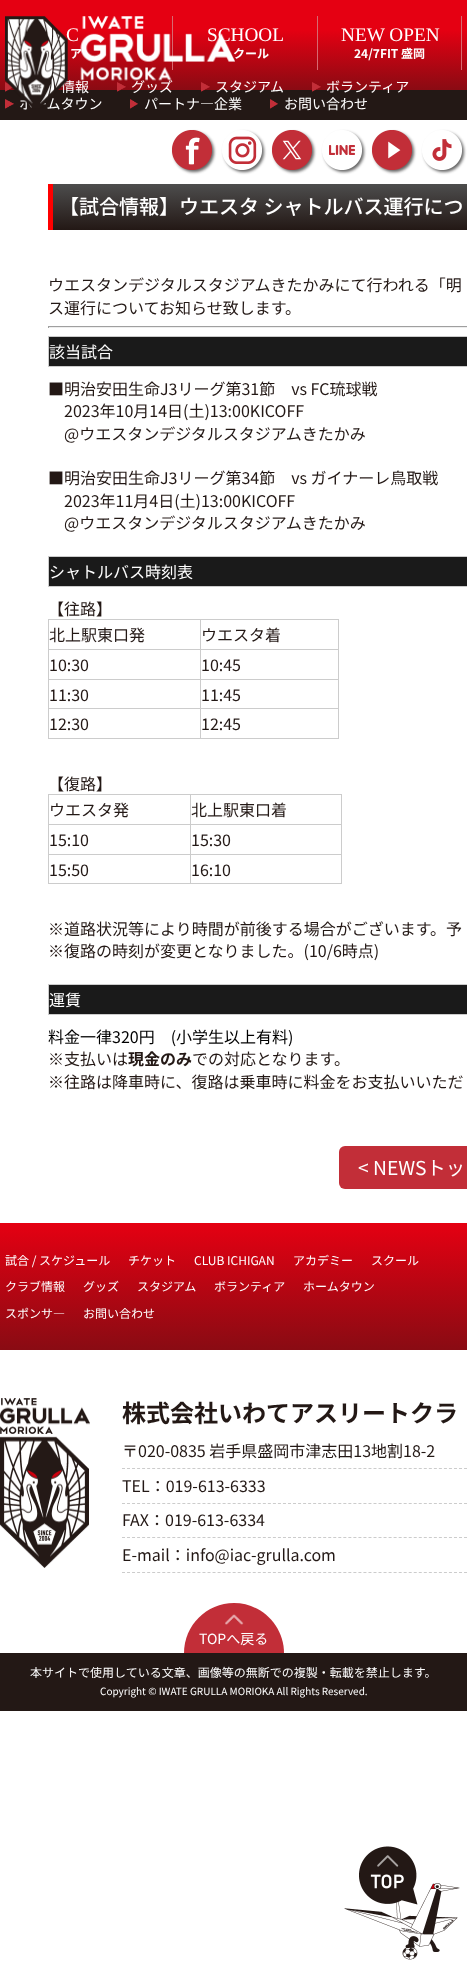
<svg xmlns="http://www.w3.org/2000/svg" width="467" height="1983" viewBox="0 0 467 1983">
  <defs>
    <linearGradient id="g1" gradientUnits="userSpaceOnUse" x1="234" y1="0" x2="234" y2="120"><stop offset="0.25" stop-color="rgb(229,0,18)"/><stop offset="0.75" stop-color="rgb(137,11,19)"/><stop offset="0.75" stop-color="rgb(35,24,21)"/></linearGradient>
    <linearGradient id="g2" gradientUnits="userSpaceOnUse" x1="453" y1="184" x2="453" y2="230"><stop offset="0" stop-color="rgb(77,77,77)"/><stop offset="1" stop-color="rgb(35,24,21)"/></linearGradient>
    <linearGradient id="g3" gradientUnits="userSpaceOnUse" x1="234" y1="1223" x2="234" y2="1350"><stop offset="0" stop-color="rgb(229,0,18)"/><stop offset="1" stop-color="rgb(137,11,19)"/></linearGradient>
  </defs>
  <rect width="100%" height="100%" fill="rgb(255,255,255)"/>
  <rect x="0" y="0" width="467" height="120" fill="url(#g1)"/>
  <text x="66" y="41" font-family="Liberation Serif" font-size="19.25" fill="rgb(255,255,255)">C</text>
  <text x="70" y="58" font-family="Noto Sans JP" font-size="12" font-weight="bold" fill="rgb(255,255,255)">ア</text>
  <rect x="172" y="16" width="1" height="54" fill="rgb(215,105,113)"/>
  <text x="207" y="41" font-family="Liberation Serif" font-size="19.25" fill="rgb(255,255,255)">SCHOOL</text>
  <text x="233" y="58" font-family="Noto Sans JP" font-size="12" font-weight="bold" fill="rgb(255,255,255)">クール</text>
  <image x="5" y="82" width="8" height="10" href="pic2.png"/>
  <text x="61" y="92" font-family="Noto Sans JP" font-size="14" fill="rgb(255,255,255)">情報</text>
  <image x="117" y="82" width="9" height="10" href="pic3.png"/>
  <text x="131" y="92" font-family="Noto Sans JP" font-size="14" fill="rgb(255,255,255)">グッズ</text>
  <image x="201" y="82" width="9" height="10" href="pic3.png"/>
  <text x="215" y="92" font-family="Noto Sans JP" font-size="14" fill="rgb(255,255,255)">スタジアム</text>
  <image x="5" y="99" width="9" height="10" href="pic5.png"/>
  <text x="19" y="109" font-family="Noto Sans JP" font-size="14" fill="rgb(255,255,255)">ホームタウン</text>
  <image x="130" y="99" width="8" height="10" href="pic6.png"/>
  <text x="144" y="109" font-family="Noto Sans JP" font-size="14" fill="rgb(255,255,255)">パートナ―企業</text>
  <image x="5" y="16" width="230" height="92" href="pic1.png"/>
  <rect x="461" y="16" width="1" height="54" fill="rgb(215,105,113)"/>
  <rect x="317" y="16" width="1" height="54" fill="rgb(215,105,113)"/>
  <text x="341" y="41" font-family="Liberation Serif" font-size="19.25" fill="rgb(255,255,255)">NEW OPEN</text>
  <text x="354" y="58" font-family="Noto Sans JP" font-size="12" font-weight="bold" fill="rgb(255,255,255)">24/7FIT 盛岡</text>
  <image x="312" y="82" width="9" height="10" href="pic4.png"/>
  <text x="326" y="92" font-family="Noto Sans JP" font-size="14" fill="rgb(255,255,255)">ボランティア</text>
  <image x="270" y="99" width="8" height="10" href="pic6.png"/>
  <text x="284" y="109" font-family="Noto Sans JP" font-size="14" fill="rgb(255,255,255)">お問い合わせ</text>
  <rect x="174" y="132" width="40" height="40" rx="20" fill="rgb(102,102,102)" filter="blur(1.5px)"/>
  <image x="172" y="130" width="40" height="40" href="pic7.png"/>
  <rect x="224" y="132" width="40" height="40" rx="20" fill="rgb(102,102,102)" filter="blur(1.5px)"/>
  <image x="222" y="130" width="40" height="40" href="pic8.png"/>
  <rect x="274" y="132" width="40" height="40" rx="20" fill="rgb(102,102,102)" filter="blur(1.5px)"/>
  <image x="272" y="130" width="40" height="40" href="pic9.png"/>
  <rect x="324" y="132" width="40" height="40" rx="20" fill="rgb(102,102,102)" filter="blur(1.5px)"/>
  <image x="322" y="130" width="40" height="40" href="pic10.png"/>
  <rect x="374" y="132" width="40" height="40" rx="20" fill="rgb(102,102,102)" filter="blur(1.5px)"/>
  <image x="372" y="130" width="40" height="40" href="pic11.png"/>
  <rect x="424" y="132" width="40" height="40" rx="20" fill="rgb(102,102,102)" filter="blur(1.5px)"/>
  <image x="422" y="130" width="40" height="40" href="pic12.png"/>
  <rect x="53" y="184" width="414" height="46" fill="url(#g2)"/>
  <rect x="48" y="184" width="5" height="46" fill="rgb(255,0,0)"/>
  <text x="59" y="214" font-family="Noto Sans JP" font-size="20" font-weight="500" fill="rgb(255,255,255)">【試合情報】ウエスタ シャトルバス運行につ</text>
  <g font-family="Noto Sans JP" font-size="16" fill="rgb(35,24,21)">
    <text>
      <tspan x="48" y="291">ウエスタンデジタルスタジアムきたかみにて行われる「明</tspan>
      <tspan x="48" y="314">ス運行についてお知らせ致します。</tspan>
    </text>
  </g>
  <rect x="48" y="326" width="419" height="1" fill="rgb(159,159,159)"/>
  <rect x="48" y="327" width="419" height="1" fill="rgb(238,238,238)"/>
  <rect x="48" y="326" width="1" height="2" fill="rgb(159,159,159)"/>
  <rect x="49" y="337" width="418" height="29" fill="rgb(26,26,26)"/>
  <rect x="48" y="336" width="419" height="1" fill="rgb(204,204,204)"/>
  <rect x="48" y="366" width="419" height="1" fill="rgb(204,204,204)"/>
  <rect x="48" y="336" width="1" height="31" fill="rgb(204,204,204)"/>
  <text x="49" y="358" font-family="Noto Sans JP" font-size="16" fill="rgb(255,255,255)">該当試合</text>
  <g font-family="Noto Sans JP" font-size="16" fill="rgb(35,24,21)">
    <text x="48" y="395">■明治安田生命J3リーグ第31節　vs FC琉球戦</text>
    <text>
      <tspan x="64" y="417">2023年10月14日(土)13:00KICOFF</tspan>
      <tspan x="64" y="440">@ウエスタンデジタルスタジアムきたかみ</tspan>
    </text>
    <text x="48" y="484">■明治安田生命J3リーグ第34節　vs ガイナーレ鳥取戦</text>
    <text>
      <tspan x="64" y="507">2023年11月4日(土)13:00KICOFF</tspan>
      <tspan x="64" y="529">@ウエスタンデジタルスタジアムきたかみ</tspan>
    </text>
  </g>
  <rect x="49" y="557" width="418" height="29" fill="rgb(26,26,26)"/>
  <rect x="48" y="556" width="419" height="1" fill="rgb(204,204,204)"/>
  <rect x="48" y="586" width="419" height="1" fill="rgb(204,204,204)"/>
  <rect x="48" y="556" width="1" height="31" fill="rgb(204,204,204)"/>
  <text x="49" y="578" font-family="Noto Sans JP" font-size="16" fill="rgb(255,255,255)">シャトルバス時刻表</text>
  <text x="48" y="615" font-family="Noto Sans JP" font-size="16" fill="rgb(35,24,21)">【往路】</text>
  <rect x="200" y="619" width="139" height="1" fill="rgb(204,204,204)"/>
  <rect x="200" y="649" width="139" height="1" fill="rgb(204,204,204)"/>
  <rect x="200" y="679" width="139" height="1" fill="rgb(204,204,204)"/>
  <rect x="200" y="708" width="139" height="1" fill="rgb(204,204,204)"/>
  <rect x="338" y="708" width="1" height="31" fill="rgb(204,204,204)"/>
  <rect x="200" y="738" width="139" height="1" fill="rgb(204,204,204)"/>
  <rect x="200" y="708" width="1" height="31" fill="rgb(204,204,204)"/>
  <rect x="48" y="708" width="153" height="1" fill="rgb(204,204,204)"/>
  <rect x="200" y="679" width="1" height="30" fill="rgb(204,204,204)"/>
  <rect x="48" y="679" width="153" height="1" fill="rgb(204,204,204)"/>
  <rect x="200" y="649" width="1" height="31" fill="rgb(204,204,204)"/>
  <rect x="48" y="649" width="153" height="1" fill="rgb(204,204,204)"/>
  <rect x="200" y="619" width="1" height="31" fill="rgb(204,204,204)"/>
  <rect x="48" y="619" width="153" height="1" fill="rgb(204,204,204)"/>
  <rect x="48" y="738" width="153" height="1" fill="rgb(204,204,204)"/>
  <rect x="48" y="708" width="1" height="31" fill="rgb(204,204,204)"/>
  <rect x="48" y="679" width="1" height="30" fill="rgb(204,204,204)"/>
  <rect x="48" y="649" width="1" height="31" fill="rgb(204,204,204)"/>
  <rect x="48" y="619" width="1" height="31" fill="rgb(204,204,204)"/>
  <text x="49" y="641" font-family="Noto Sans JP" font-size="16" fill="rgb(35,24,21)">北上駅東口発</text>
  <rect x="338" y="679" width="1" height="30" fill="rgb(204,204,204)"/>
  <rect x="338" y="649" width="1" height="31" fill="rgb(204,204,204)"/>
  <rect x="338" y="619" width="1" height="31" fill="rgb(204,204,204)"/>
  <g font-family="Noto Sans JP" font-size="16" fill="rgb(35,24,21)">
    <text x="201" y="641">ウエスタ着</text>
    <text x="49" y="671">10:30</text>
    <text x="201" y="671">10:45</text>
    <text x="49" y="701">11:30</text>
    <text x="201" y="701">11:45</text>
    <text x="49" y="730">12:30</text>
    <text x="201" y="730">12:45</text>
    <text x="48" y="790">【復路】</text>
  </g>
  <rect x="190" y="794" width="152" height="1" fill="rgb(204,204,204)"/>
  <rect x="190" y="824" width="152" height="1" fill="rgb(204,204,204)"/>
  <rect x="190" y="854" width="152" height="1" fill="rgb(204,204,204)"/>
  <rect x="341" y="854" width="1" height="30" fill="rgb(204,204,204)"/>
  <rect x="190" y="883" width="152" height="1" fill="rgb(204,204,204)"/>
  <rect x="190" y="854" width="1" height="30" fill="rgb(204,204,204)"/>
  <rect x="48" y="854" width="143" height="1" fill="rgb(204,204,204)"/>
  <rect x="190" y="824" width="1" height="31" fill="rgb(204,204,204)"/>
  <rect x="48" y="824" width="143" height="1" fill="rgb(204,204,204)"/>
  <rect x="190" y="794" width="1" height="31" fill="rgb(204,204,204)"/>
  <rect x="48" y="794" width="143" height="1" fill="rgb(204,204,204)"/>
  <rect x="48" y="883" width="143" height="1" fill="rgb(204,204,204)"/>
  <rect x="48" y="854" width="1" height="30" fill="rgb(204,204,204)"/>
  <rect x="48" y="824" width="1" height="31" fill="rgb(204,204,204)"/>
  <rect x="48" y="794" width="1" height="31" fill="rgb(204,204,204)"/>
  <text x="49" y="816" font-family="Noto Sans JP" font-size="16" fill="rgb(35,24,21)">ウエスタ発</text>
  <rect x="341" y="824" width="1" height="31" fill="rgb(204,204,204)"/>
  <rect x="341" y="794" width="1" height="31" fill="rgb(204,204,204)"/>
  <g font-family="Noto Sans JP" font-size="16" fill="rgb(35,24,21)">
    <text x="191" y="816">北上駅東口着</text>
    <text x="49" y="846">15:10</text>
    <text x="191" y="846">15:30</text>
    <text x="49" y="876">15:50</text>
    <text x="191" y="876">16:10</text>
    <text>
      <tspan x="48" y="935">※道路状況等により時間が前後する場合がございます。予</tspan>
      <tspan x="48" y="957">※復路の時刻が変更となりました。(10/6時点)</tspan>
    </text>
  </g>
  <rect x="49" y="985" width="418" height="29" fill="rgb(26,26,26)"/>
  <rect x="48" y="984" width="419" height="1" fill="rgb(204,204,204)"/>
  <rect x="48" y="1014" width="419" height="1" fill="rgb(204,204,204)"/>
  <rect x="48" y="984" width="1" height="31" fill="rgb(204,204,204)"/>
  <text x="49" y="1006" font-family="Noto Sans JP" font-size="16" fill="rgb(255,255,255)">運賃</text>
  <text x="48" y="1043" font-family="Noto Sans JP" font-size="16" fill="rgb(0,0,0)">料金一律320円　(小学生以上有料)</text>
  <text x="48" y="1065" font-family="Noto Sans JP" font-size="16" fill="rgb(35,24,21)">※支払いは</text>
  <text x="128" y="1065" font-family="Noto Sans JP" font-size="16" font-weight="bold" fill="rgb(35,24,21)">現金のみ</text>
  <g font-family="Noto Sans JP" font-size="16" fill="rgb(35,24,21)">
    <text x="192" y="1065">での対応となります。</text>
    <text x="48" y="1088">※往路は降車時に、復路は乗車時に料金をお支払いいただ</text>
  </g>
  <rect x="339" y="1146" width="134" height="43" rx="6" fill="rgb(194,46,56)"/>
  <text x="358" y="1175" font-family="Noto Sans JP" font-size="19.25" fill="rgb(255,255,255)">&lt; NEWSトッ</text>
  <rect x="0" y="1223" width="467" height="127" fill="url(#g3)"/>
  <g font-family="Noto Sans JP" font-size="12" fill="rgb(255,255,255)">
    <text x="5" y="1265">試合 / スケジュール</text>
    <text x="128" y="1265">チケット</text>
    <text x="194" y="1265">CLUB ICHIGAN</text>
    <text x="293" y="1265">アカデミー</text>
    <text x="371" y="1265">スクール</text>
    <text x="5" y="1291">クラブ情報</text>
    <text x="83" y="1291">グッズ</text>
    <text x="137" y="1291">スタジアム</text>
    <text x="214" y="1291">ボランティア</text>
    <text x="303" y="1291">ホームタウン</text>
    <text x="5" y="1318">スポンサ―</text>
    <text x="83" y="1318">お問い合わせ</text>
  </g>
  <image x="0" y="1398" width="90" height="170" href="pic13.png"/>
  <text x="122" y="1422" font-family="Noto Sans JP" font-size="24" font-weight="bold" fill="rgb(35,24,21)">株式会社いわてアスリートクラ</text>
  <path d="M122 1468.5H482" fill="none" stroke="rgb(204,204,204)" stroke-dasharray="3 2.03"/>
  <text x="122" y="1457" font-family="Noto Sans JP" font-size="16" fill="rgb(35,24,21)">〒020-0835 岩手県盛岡市津志田13地割18-2</text>
  <path d="M122 1503.5H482" fill="none" stroke="rgb(204,204,204)" stroke-dasharray="3 2.03"/>
  <text x="122" y="1492" font-family="Noto Sans JP" font-size="16" fill="rgb(35,24,21)">TEL：019-613-6333</text>
  <path d="M122 1537.5H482" fill="none" stroke="rgb(204,204,204)" stroke-dasharray="3 2.03"/>
  <text x="122" y="1526" font-family="Noto Sans JP" font-size="16" fill="rgb(35,24,21)">FAX：019-613-6334</text>
  <path d="M122 1572.5H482" fill="none" stroke="rgb(204,204,204)" stroke-dasharray="3 2.03"/>
  <text x="122" y="1561" font-family="Noto Sans JP" font-size="16" fill="rgb(35,24,21)">E-mail：info@iac-grulla.com</text>
  <path d="M234 1603C261.5 1603 284 1625.5 284 1653H184C184 1625.5 206.5 1603 234 1603Z" fill="rgb(194,46,56)"/>
  <image x="225" y="1614" width="19" height="11" href="pic14.png"/>
  <text x="199" y="1644" font-family="Noto Sans JP" font-size="14" fill="rgb(255,255,255)">TOPへ戻る</text>
  <rect x="0" y="1653" width="467" height="58" fill="rgb(35,24,21)"/>
  <text x="30" y="1677" font-family="Noto Sans JP" font-size="12" fill="rgb(255,255,255)">本サイトで使用している文章、画像等の無断での複製・転載を禁止します。</text>
  <text x="100" y="1695" font-family="Noto Sans JP" font-size="10" fill="rgb(255,255,255)">Copyright © IWATE GRULLA MORIOKA All Rights Reserved.</text>
  <image x="344" y="1846" width="116" height="114" href="pic15.png"/>
</svg>
